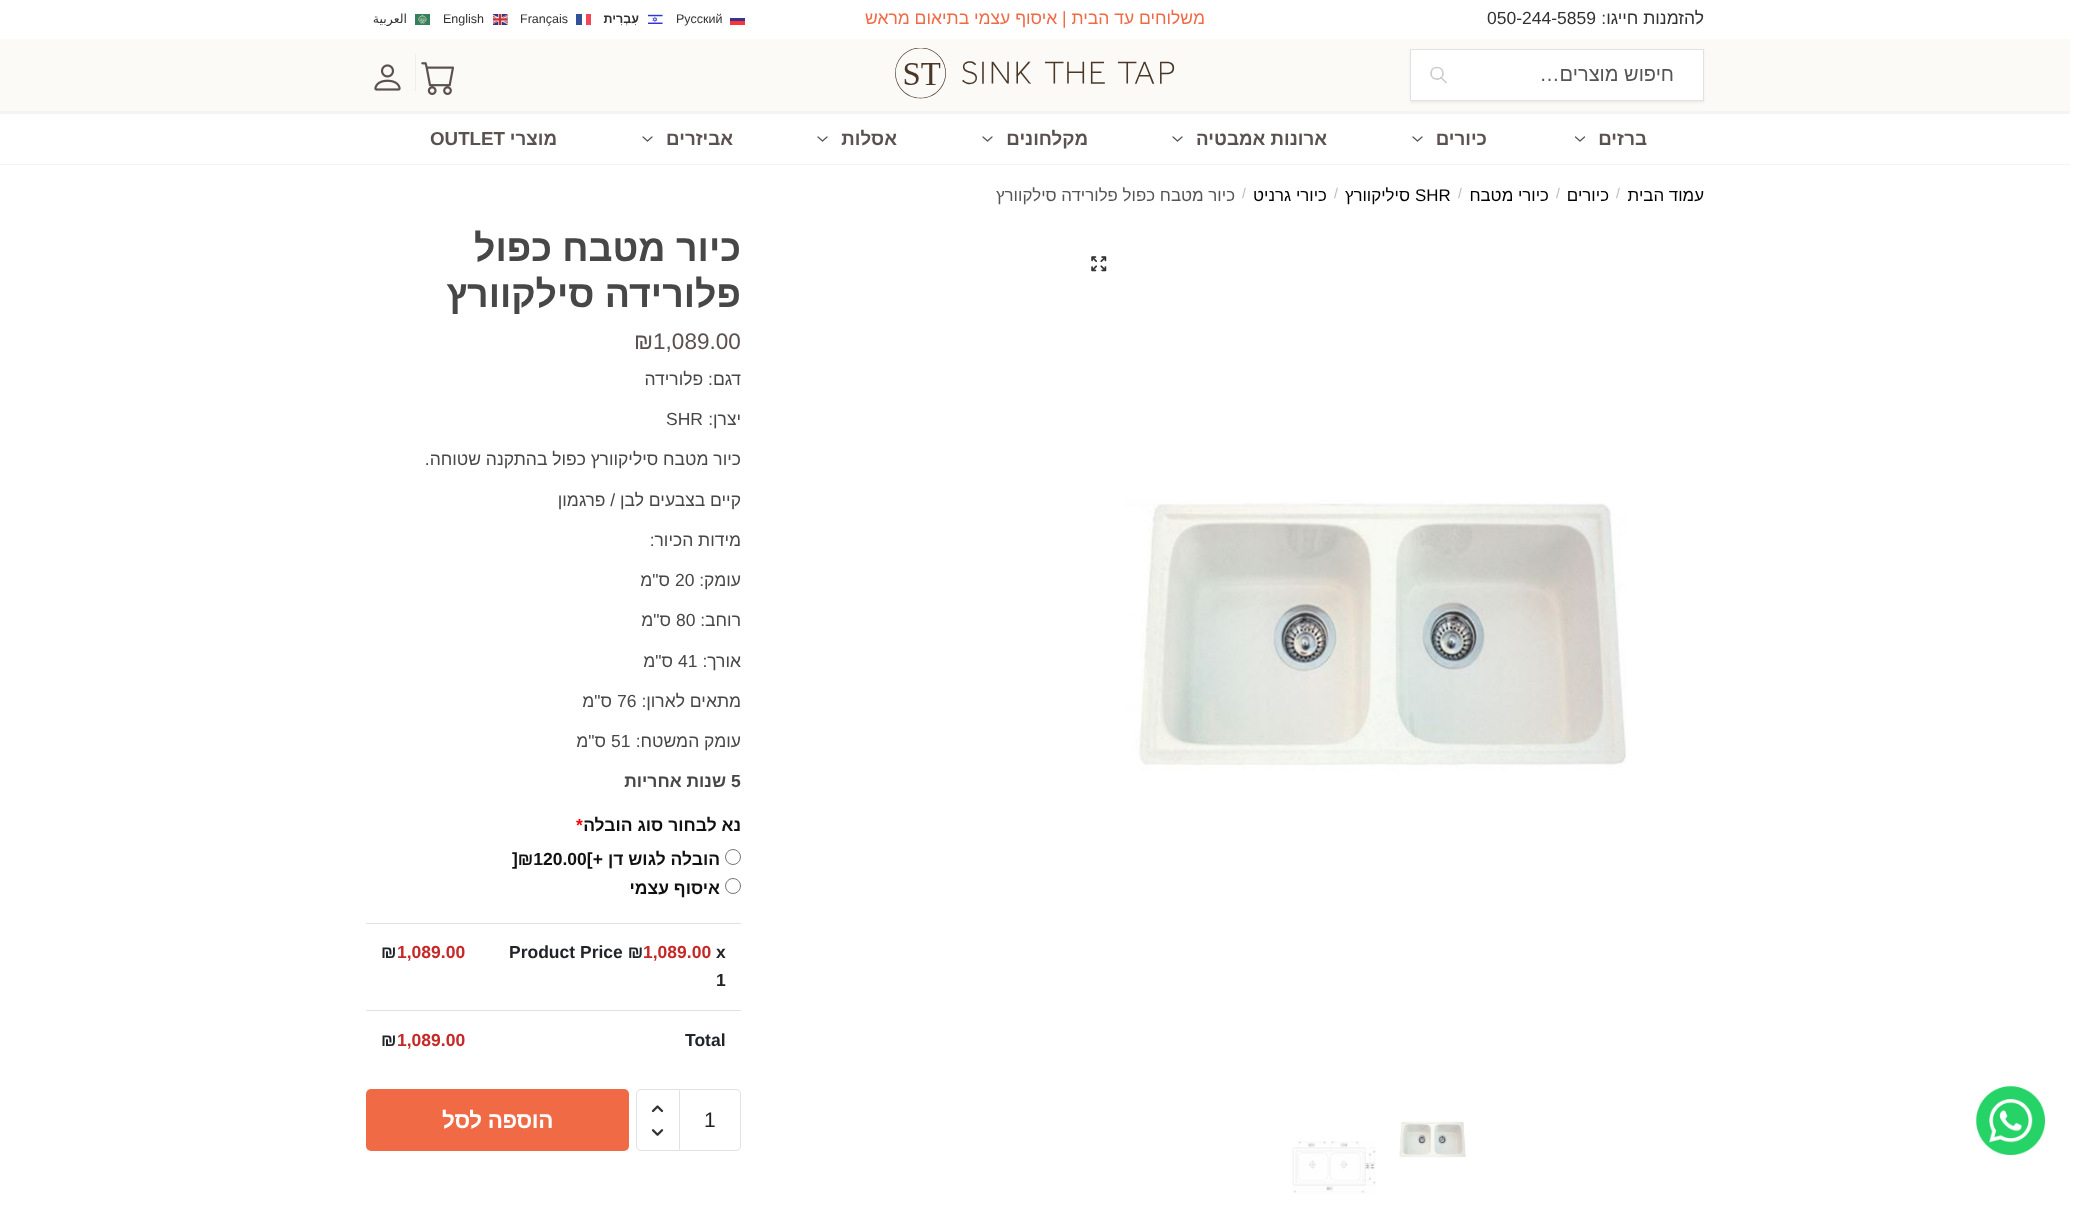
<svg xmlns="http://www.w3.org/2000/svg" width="2088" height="1215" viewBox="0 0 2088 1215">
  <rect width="100%" height="100%" fill="rgb(255,255,255)"/>
  <image x="1976" y="1086" width="69" height="69" href="pic1.png"/>
  <text x="1704" y="24" font-family="Liberation Sans" font-size="17.5" direction="rtl" fill="rgb(50,50,50)">להזמנות חייגו:</text>
  <text x="1487" y="24" font-family="Liberation Sans" font-size="17.5" fill="rgb(50,50,50)">050-244-5859</text>
  <text x="1205" y="24" font-family="Liberation Sans" font-size="17.5" direction="rtl" fill="rgb(240,106,70)">משלוחים עד הבית | איסוף עצמי בתיאום מראש</text>
  <rect x="730" y="18" width="15" height="3" fill="rgb(52,52,152)"/>
  <text x="676" y="23" font-family="Liberation Sans" font-size="12.5" fill="rgb(50,50,50)">Русский</text>
  <rect x="730" y="21" width="15" height="4" fill="rgb(254,52,52)"/>
  <image x="648" y="14" width="15" height="10" href="pic2.png"/>
  <text x="639" y="23" font-family="Liberation Sans" font-size="12.5" font-weight="bold" direction="rtl" fill="rgb(50,50,50)">עִבְרִית</text>
  <rect x="586" y="14" width="5" height="11" fill="rgb(245,70,89)"/>
  <rect x="576" y="14" width="6" height="11" fill="rgb(51,81,153)"/>
  <text x="520" y="23" font-family="Liberation Sans" font-size="12.5" fill="rgb(50,50,50)">Français</text>
  <image x="493" y="14" width="15" height="11" href="pic3.png"/>
  <text x="443" y="23" font-family="Liberation Sans" font-size="12.5" fill="rgb(50,50,50)">English</text>
  <image x="415" y="14" width="15" height="11" href="pic4.png"/>
  <text x="407" y="23" font-family="DejaVu Sans" font-size="12.5" direction="rtl" fill="rgb(50,50,50)">العربية</text>
  <rect x="0" y="39" width="2070" height="72" fill="rgb(252,250,247)"/>
  <rect x="1410" y="50" width="294" height="53" fill="rgba(0,0,0,0.05)" filter="blur(1px)"/>
  <rect x="1410.5" y="49.5" width="293" height="51" fill="rgb(255,255,255)" stroke="rgb(226,226,226)"/>
  <text x="1674" y="81" font-family="Liberation Sans" font-size="20" direction="rtl" fill="rgb(85,85,85)">חיפוש מוצרים…</text>
  <path d="M1446 82.5L1441 77.5M1443 73.5C1443 81 1431 81 1431 73.5C1431 65.5 1443 65.5 1443 73.5Z" fill="none" stroke="rgb(204,204,204)" stroke-width="1.7" stroke-linecap="round" stroke-linejoin="round"/>
  <image x="895" y="48" width="280" height="51" href="pic5.png"/>
  <rect x="415" y="54" width="1" height="37" fill="rgb(238,238,238)"/>
  <image x="421" y="62" width="33" height="33" href="pic6.png"/>
  <image x="374" y="64" width="27" height="27" href="pic7.png"/>
  <rect x="0" y="111" width="2070" height="3" fill="rgb(244,244,244)"/>
  <rect x="0" y="164" width="2070" height="1" fill="rgb(244,244,244)"/>
  <text x="1647" y="145" font-family="Liberation Sans" font-size="18.75" font-weight="bold" direction="rtl" fill="rgb(91,81,81)">ברזים</text>
  <path d="M1584.5 137L1580 141L1575.5 137" fill="none" stroke="rgb(91,81,81)" stroke-width="1.2" stroke-linecap="round" stroke-linejoin="round"/>
  <text x="1487" y="145" font-family="Liberation Sans" font-size="18.75" font-weight="bold" direction="rtl" fill="rgb(91,81,81)">כיורים</text>
  <path d="M1422 137L1417.5 141L1413 137" fill="none" stroke="rgb(91,81,81)" stroke-width="1.2" stroke-linecap="round" stroke-linejoin="round"/>
  <text x="1327" y="145" font-family="Liberation Sans" font-size="18.75" font-weight="bold" direction="rtl" fill="rgb(91,81,81)">ארונות אמבטיה</text>
  <path d="M1182 137L1177.5 141L1173 137" fill="none" stroke="rgb(91,81,81)" stroke-width="1.2" stroke-linecap="round" stroke-linejoin="round"/>
  <text x="1088" y="145" font-family="Liberation Sans" font-size="18.75" font-weight="bold" direction="rtl" fill="rgb(91,81,81)">מקלחונים</text>
  <path d="M992 137L987.5 141L983 137" fill="none" stroke="rgb(91,81,81)" stroke-width="1.2" stroke-linecap="round" stroke-linejoin="round"/>
  <text x="897" y="145" font-family="Liberation Sans" font-size="18.75" font-weight="bold" direction="rtl" fill="rgb(91,81,81)">אסלות</text>
  <path d="M827 137L822.5 141L818 137" fill="none" stroke="rgb(91,81,81)" stroke-width="1.2" stroke-linecap="round" stroke-linejoin="round"/>
  <text x="733" y="145" font-family="Liberation Sans" font-size="18.75" font-weight="bold" direction="rtl" fill="rgb(91,81,81)">אביזרים</text>
  <path d="M652 137L647.5 141L643 137" fill="none" stroke="rgb(91,81,81)" stroke-width="1.2" stroke-linecap="round" stroke-linejoin="round"/>
  <text x="557" y="145" font-family="Liberation Sans" font-size="18.75" font-weight="bold" direction="rtl" fill="rgb(91,81,81)">מוצרי</text>
  <text x="430" y="145" font-family="Liberation Sans" font-size="18.75" font-weight="bold" fill="rgb(91,81,81)">OUTLET</text>
  <text x="1704" y="201" font-family="Liberation Sans" font-size="16.9" direction="rtl" fill="rgb(0,0,0)">עמוד הבית</text>
  <text x="1616" y="198" font-family="Liberation Sans" font-size="14" fill="rgb(187,187,187)">/</text>
  <text x="1609" y="201" font-family="Liberation Sans" font-size="16.9" direction="rtl" fill="rgb(0,0,0)">כיורים</text>
  <text x="1556" y="198" font-family="Liberation Sans" font-size="14" fill="rgb(187,187,187)">/</text>
  <text x="1549" y="201" font-family="Liberation Sans" font-size="16.9" direction="rtl" fill="rgb(0,0,0)">כיורי מטבח</text>
  <text x="1458" y="198" font-family="Liberation Sans" font-size="14" fill="rgb(187,187,187)">/</text>
  <text x="1415" y="201" font-family="Liberation Sans" font-size="16.9" fill="rgb(0,0,0)">SHR</text>
  <text x="1410" y="201" font-family="Liberation Sans" font-size="16.9" direction="rtl" fill="rgb(0,0,0)">סיליקוורץ</text>
  <text x="1334" y="198" font-family="Liberation Sans" font-size="14" fill="rgb(187,187,187)">/</text>
  <text x="1327" y="201" font-family="Liberation Sans" font-size="16.9" direction="rtl" fill="rgb(0,0,0)">כיורי גרניט</text>
  <text x="1242" y="198" font-family="Liberation Sans" font-size="14" fill="rgb(187,187,187)">/</text>
  <text x="1235" y="201" font-family="Liberation Sans" font-size="16.9" direction="rtl" fill="rgb(85,85,85)">כיור מטבח כפול פלורידה סילקוורץ</text>
  <image x="1091" y="256" width="16" height="16" href="pic8.png"/>
  <image x="1061" y="500" width="566" height="270" href="pic9.png"/>
  <image x="1399" y="1121" width="67" height="37" href="pic10.png"/>
  <image x="1292" y="1141" width="84" height="54" href="pic11.png"/>
  <g font-family="Liberation Sans" font-size="37.5" font-weight="bold" direction="rtl" fill="rgb(71,71,71)">
    <text>
      <tspan x="741" y="261">כיור מטבח כפול</tspan>
      <tspan x="741" y="307">פלורידה סילקוורץ</tspan>
    </text>
  </g>
  <text x="634" y="349" font-family="Liberation Sans" font-size="22.5" fill="rgb(91,81,81)">₪1,089.00</text>
  <g font-family="Liberation Sans" font-size="17.5" direction="rtl" fill="rgb(71,71,71)">
    <text x="741" y="385">דגם: פלורידה</text>
    <text x="741" y="425">יצרן:</text>
  </g>
  <text x="666" y="425" font-family="Liberation Sans" font-size="17.5" fill="rgb(71,71,71)">SHR</text>
  <g font-family="Liberation Sans" font-size="17.5" direction="rtl" fill="rgb(71,71,71)">
    <text x="741" y="465">כיור מטבח סיליקוורץ כפול בהתקנה שטוחה.</text>
    <text x="741" y="506">קיים בצבעים לבן / פרגמון</text>
    <text x="741" y="546">מידות הכיור:</text>
    <text x="741" y="586">עומק:</text>
  </g>
  <text x="675" y="586" font-family="Liberation Sans" font-size="17.5" fill="rgb(71,71,71)">20</text>
  <g font-family="Liberation Sans" font-size="17.5" direction="rtl" fill="rgb(71,71,71)">
    <text x="670" y="586">ס"מ</text>
    <text x="741" y="626">רוחב:</text>
  </g>
  <text x="676" y="626" font-family="Liberation Sans" font-size="17.5" fill="rgb(71,71,71)">80</text>
  <g font-family="Liberation Sans" font-size="17.5" direction="rtl" fill="rgb(71,71,71)">
    <text x="671" y="626">ס"מ</text>
    <text x="741" y="667">אורך:</text>
  </g>
  <text x="678" y="667" font-family="Liberation Sans" font-size="17.5" fill="rgb(71,71,71)">41</text>
  <g font-family="Liberation Sans" font-size="17.5" direction="rtl" fill="rgb(71,71,71)">
    <text x="673" y="667">ס"מ</text>
    <text x="741" y="707">מתאים לארון:</text>
  </g>
  <text x="617" y="707" font-family="Liberation Sans" font-size="17.5" fill="rgb(71,71,71)">76</text>
  <g font-family="Liberation Sans" font-size="17.5" direction="rtl" fill="rgb(71,71,71)">
    <text x="612" y="707">ס"מ</text>
    <text x="741" y="747">עומק המשטח:</text>
  </g>
  <text x="611" y="747" font-family="Liberation Sans" font-size="17.5" fill="rgb(71,71,71)">51</text>
  <text x="606" y="747" font-family="Liberation Sans" font-size="17.5" direction="rtl" fill="rgb(71,71,71)">ס"מ</text>
  <text x="731" y="787" font-family="Liberation Sans" font-size="17.5" font-weight="bold" fill="rgb(71,71,71)">5</text>
  <text x="726" y="787" font-family="Liberation Sans" font-size="17.5" font-weight="bold" direction="rtl" fill="rgb(71,71,71)">שנות אחריות</text>
  <text x="741" y="831" font-family="Liberation Sans" font-size="17.5" font-weight="bold" direction="rtl" fill="rgb(17,17,17)">נא לבחור סוג הובלה</text>
  <text x="576" y="831" font-family="Liberation Sans" font-size="17.5" font-weight="bold" fill="rgb(255,0,0)">*</text>
  <circle cx="733" cy="857" r="7.5" fill="none" stroke="rgb(118,118,118)"/>
  <text x="720" y="865" font-family="Liberation Sans" font-size="17.5" font-weight="bold" direction="rtl" fill="rgb(17,17,17)">הובלה לגוש דן</text>
  <text x="512" y="865" font-family="Liberation Sans" font-size="17.5" font-weight="bold" fill="rgb(17,17,17)">]₪120.00[+</text>
  <circle cx="733" cy="886" r="7.5" fill="none" stroke="rgb(118,118,118)"/>
  <text x="720" y="894" font-family="Liberation Sans" font-size="17.5" font-weight="bold" direction="rtl" fill="rgb(17,17,17)">איסוף עצמי</text>
  <text x="716" y="958" font-family="Liberation Sans" font-size="17.5" font-weight="bold" fill="rgb(33,37,41)">x</text>
  <text x="643" y="958" font-family="Liberation Sans" font-size="17.5" font-weight="bold" fill="rgb(198,40,40)">1,089.00</text>
  <g font-family="Liberation Sans" font-size="17.5" font-weight="bold" fill="rgb(33,37,41)">
    <text x="509" y="958">Product Price ₪</text>
    <text x="716" y="986">1</text>
  </g>
  <rect x="366" y="923" width="375" height="1" fill="rgb(222,226,230)"/>
  <text x="397" y="958" font-family="Liberation Sans" font-size="17.5" font-weight="bold" fill="rgb(198,40,40)">1,089.00</text>
  <g font-family="Liberation Sans" font-size="17.5" font-weight="bold" fill="rgb(33,37,41)">
    <text x="381" y="958">₪</text>
    <text x="685" y="1046">Total</text>
  </g>
  <rect x="366" y="1010" width="375" height="1" fill="rgb(222,226,230)"/>
  <text x="397" y="1046" font-family="Liberation Sans" font-size="17.5" font-weight="bold" fill="rgb(198,40,40)">1,089.00</text>
  <text x="381" y="1046" font-family="Liberation Sans" font-size="17.5" font-weight="bold" fill="rgb(33,37,41)">₪</text>
  <path d="M679.5 1089.5H736C738.5 1089.5 740.5 1091.5 740.5 1094V1146C740.5 1148.5 738.5 1150.5 736 1150.5H679.5Z" fill="none" stroke="rgb(226,226,226)"/>
  <text x="704" y="1127" font-family="Liberation Sans" font-size="21" fill="rgb(34,34,34)">1</text>
  <path d="M641 1089.5H679.5V1150.5H641C638.5 1150.5 636.5 1148.5 636.5 1146V1094C636.5 1091.5 638.5 1089.5 641 1089.5Z" fill="rgb(255,255,255)" stroke="rgb(226,226,226)"/>
  <image x="651" y="1105" width="13" height="8" href="pic12.png"/>
  <image x="651" y="1129" width="13" height="7" href="pic13.png"/>
  <rect x="366" y="1089" width="263" height="62" rx="5" fill="rgb(240,106,70)"/>
  <text x="553" y="1128" font-family="Liberation Sans" font-size="22.5" font-weight="bold" letter-spacing="-0.4" direction="rtl" fill="rgb(255,255,255)">הוספה לסל</text>
</svg>
